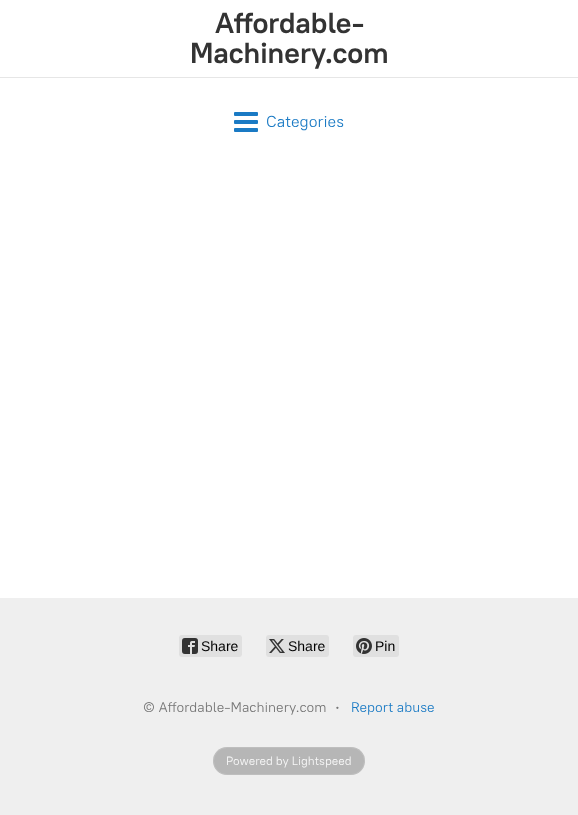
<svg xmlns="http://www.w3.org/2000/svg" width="578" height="815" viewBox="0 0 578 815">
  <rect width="100%" height="100%" fill="rgb(239,239,239)"/>
  <rect x="0" y="0" width="578" height="598" fill="rgb(255,255,255)"/>
  <rect x="0" y="77" width="578" height="1" fill="rgb(230,230,230)"/>
  <g font-family="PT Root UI" font-size="29" font-weight="bold" fill="rgb(51,51,51)">
    <text x="215" y="33">Affordable-</text>
    <text x="190" y="63">Machinery.com</text>
  </g>
  <image x="234" y="112" width="24" height="20" href="pic1.png"/>
  <text x="266" y="127" font-family="PT Root UI" font-size="16" fill="rgb(26,122,196)">Categories</text>
  <rect x="179" y="635" width="63" height="22" rx="3" fill="rgb(224,224,224)"/>
  <image x="182" y="638" width="16" height="16" href="pic2.png"/>
  <text x="201" y="651" font-family="Liberation Sans" font-size="14" fill="rgb(0,0,0)">Share</text>
  <rect x="266" y="635" width="63" height="22" rx="3" fill="rgb(224,224,224)"/>
  <image x="269" y="639" width="16" height="14" href="pic3.png"/>
  <text x="288" y="651" font-family="Liberation Sans" font-size="14" fill="rgb(0,0,0)">Share</text>
  <rect x="353" y="635" width="46" height="22" rx="3" fill="rgb(224,224,224)"/>
  <image x="356" y="638" width="16" height="16" href="pic4.png"/>
  <text x="375" y="651" font-family="Liberation Sans" font-size="14" fill="rgb(0,0,0)">Pin</text>
  <text x="143" y="712" font-family="PT Root UI" font-size="14" fill="rgb(117,117,117)">© Affordable-Machinery.com</text>
  <text x="335" y="712" font-family="PT Root UI" font-size="16" font-weight="500" fill="rgb(117,117,117)">·</text>
  <text x="351" y="712" font-family="PT Root UI" font-size="14" fill="rgb(26,122,196)">Report abuse</text>
  <rect x="213" y="747" width="152" height="28" rx="14" fill="rgb(182,182,182)"/>
  <rect x="213.5" y="747.5" width="151" height="27" rx="13.5" fill="none" stroke="rgba(255,255,255,0.12)"/>
  <text x="226" y="765" font-family="PT Root UI" font-size="12" fill="rgb(248,248,248)">Powered by Lightspeed</text>
</svg>
